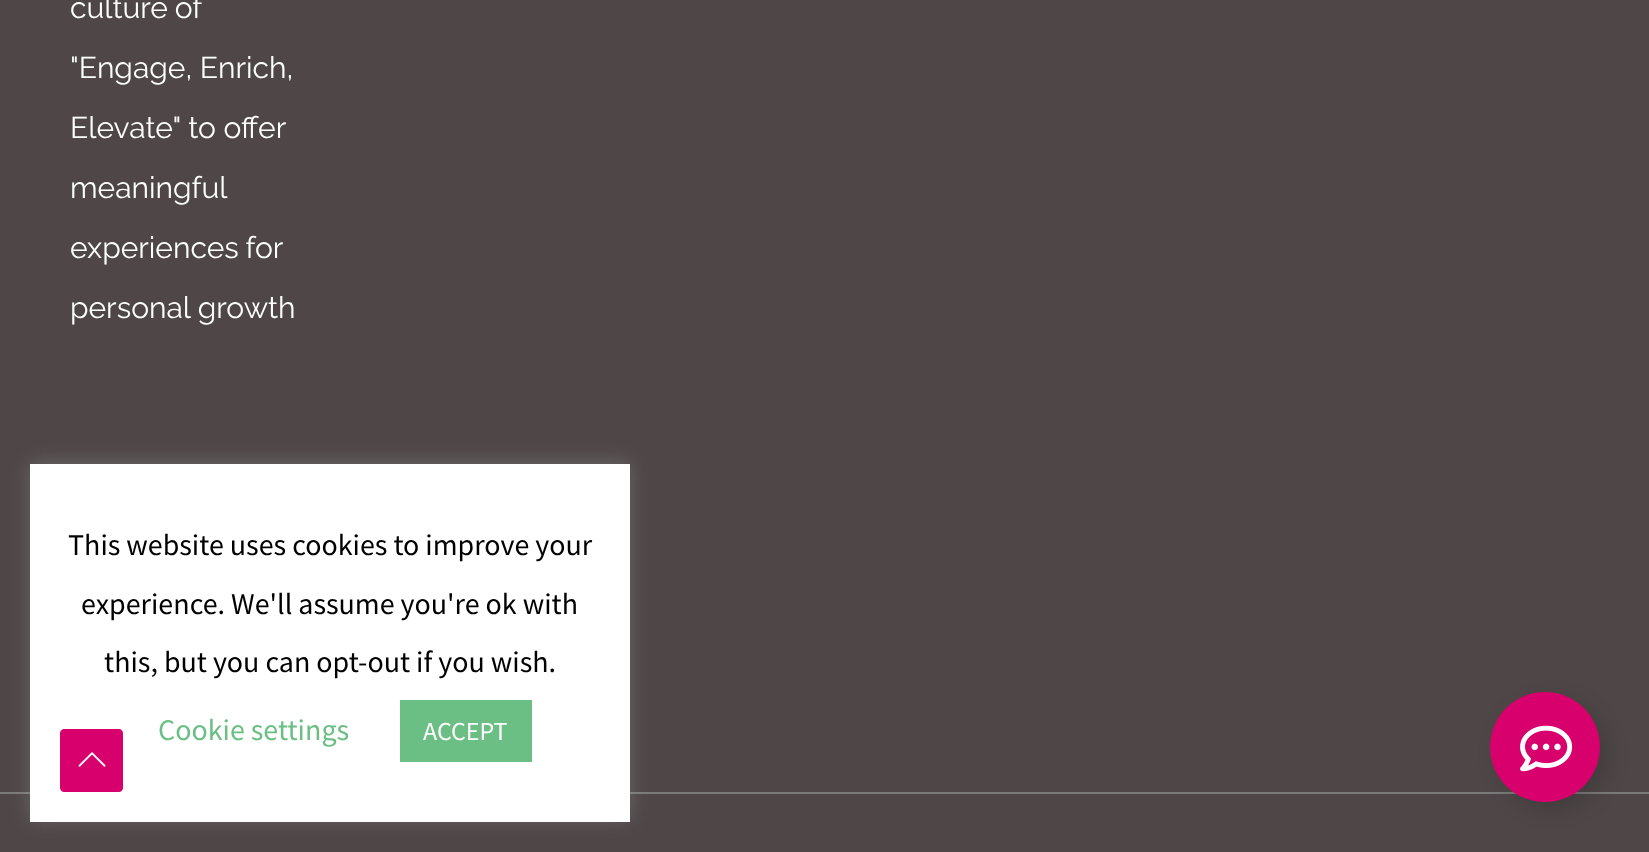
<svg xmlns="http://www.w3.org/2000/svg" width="1649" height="852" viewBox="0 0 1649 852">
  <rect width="100%" height="100%" fill="rgb(79,71,71)"/>
  <g font-family="Raleway" font-size="30" fill="rgb(255,255,255)">
    <text x="70" y="18" word-spacing="-1">culture of</text>
    <text x="70" y="78">"Engage, Enrich,</text>
    <text x="70" y="138">Elevate" to offer</text>
    <text x="70" y="198">meaningful</text>
    <text x="70" y="258" word-spacing="-1">experiences for</text>
    <text x="70" y="318">personal growth</text>
  </g>
  <rect x="0" y="792" width="1649" height="2" fill="rgb(122,122,122)"/>
  <rect x="30" y="462" width="600" height="358" fill="rgba(172,171,171,0.3)" filter="blur(10px)"/>
  <rect x="30" y="464" width="600" height="358" fill="rgb(255,255,255)"/>
  <g font-family="Source Sans Pro" font-size="30" fill="rgb(0,0,0)">
    <text x="68" y="555">This website uses cookies to improve your</text>
    <text x="81" y="614">experience. We'll assume you're ok with</text>
    <text x="104" y="672">this, but you can opt-out if you wish.</text>
  </g>
  <text x="158" y="740" font-family="Source Sans Pro" font-size="30" fill="rgb(108,191,132)">Cookie settings</text>
  <rect x="400" y="700" width="132" height="62" fill="rgb(108,191,132)"/>
  <text x="423" y="740" font-family="Source Sans Pro" font-size="26" fill="rgb(255,255,255)">ACCEPT</text>
  <rect x="1498" y="700" width="110" height="110" rx="55" fill="rgba(0,0,0,0.15)" filter="blur(10px)"/>
  <circle cx="1545" cy="747" r="55" fill="rgb(216,0,108)"/>
  <image x="1520" y="725" width="53" height="47" href="pic1.png"/>
  <path d="M119 792H64C62 792 60 790 60 788V733C60 731 62 729 64 729H119C121 729 123 731 123 733V788C123 790 121 792 119 792Z" fill="rgb(216,0,108)"/>
  <image x="78" y="752" width="28" height="15" href="pic2.png"/>
</svg>
